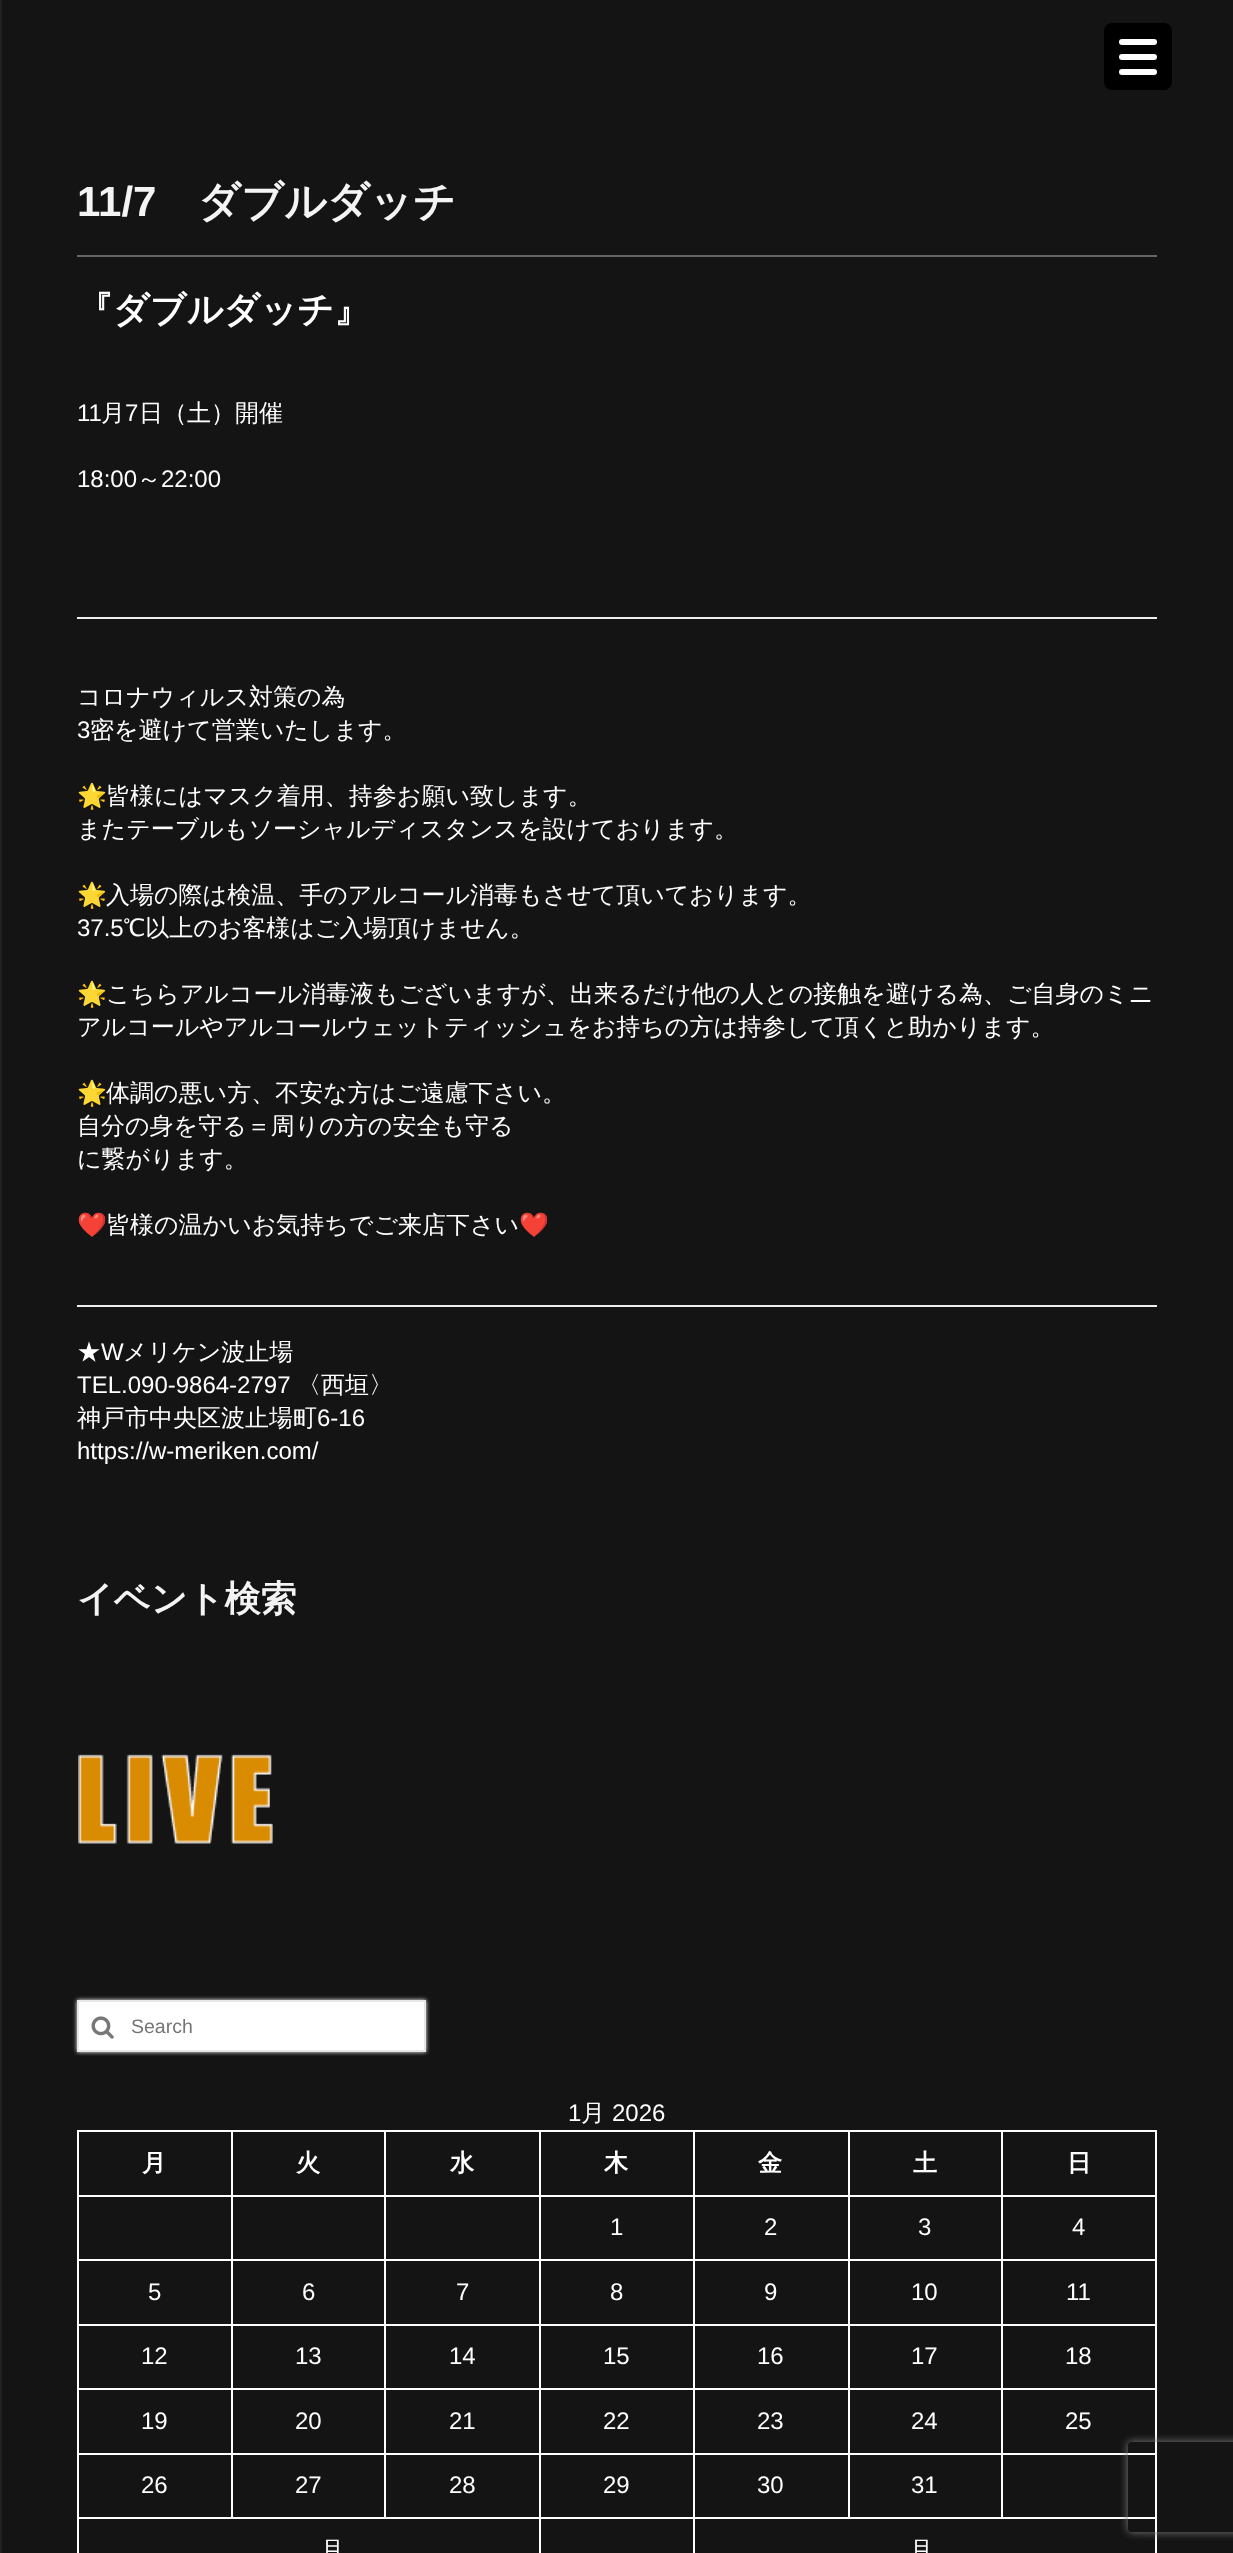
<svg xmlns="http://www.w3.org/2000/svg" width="1233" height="2553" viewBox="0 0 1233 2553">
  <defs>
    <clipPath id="clip1"><path d="M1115 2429H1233V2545H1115ZM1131 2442H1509C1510.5 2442 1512 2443.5 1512 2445V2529C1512 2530.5 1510.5 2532 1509 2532H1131C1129.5 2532 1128 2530.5 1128 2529V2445C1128 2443.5 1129.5 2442 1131 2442Z" clip-rule="evenodd"/></clipPath>
  </defs>
  <rect width="100%" height="100%" fill="rgb(20,20,20)"/>
  <rect x="0" y="0" width="2" height="2553" fill="rgb(33,33,33)"/>
  <rect x="1104" y="23" width="68" height="67" rx="8" fill="rgb(0,0,0)"/>
  <rect x="1119" y="54" width="38" height="6" rx="3" fill="rgb(255,255,255)"/>
  <rect x="1119" y="39" width="38" height="6" rx="3" fill="rgb(255,255,255)"/>
  <rect x="1119" y="69" width="38" height="6" rx="3" fill="rgb(255,255,255)"/>
  <rect x="77" y="255" width="1080" height="2" fill="rgb(102,102,102)"/>
  <text x="77" y="216" font-family="Liberation Sans" font-size="42" font-weight="bold" fill="rgb(244,244,244)">11/7</text>
  <text x="198" y="216" font-family="WenQuanYi Zen Hei" font-size="42" font-weight="bold" fill="rgb(244,244,244)">ダブルダッチ</text>
  <text x="77" y="322" font-family="WenQuanYi Zen Hei" font-size="36" font-weight="bold" fill="rgb(255,255,255)">『ダブルダッチ』</text>
  <text x="77" y="421" font-family="Liberation Sans" font-size="24" fill="rgb(255,255,255)">11</text>
  <text x="101" y="421" font-family="WenQuanYi Zen Hei" font-size="24" font-weight="500" fill="rgb(255,255,255)">月</text>
  <text x="125" y="421" font-family="Liberation Sans" font-size="24" fill="rgb(255,255,255)">7</text>
  <text x="139" y="421" font-family="WenQuanYi Zen Hei" font-size="24" font-weight="500" fill="rgb(255,255,255)">日（土）開催</text>
  <text x="77" y="487" font-family="Liberation Sans" font-size="24" fill="rgb(255,255,255)">18:00</text>
  <text x="137" y="487" font-family="WenQuanYi Zen Hei" font-size="24" font-weight="500" fill="rgb(255,255,255)">～</text>
  <text x="161" y="487" font-family="Liberation Sans" font-size="24" fill="rgb(255,255,255)">22:00</text>
  <rect x="77" y="617" width="1080" height="2" fill="rgb(238,238,238)"/>
  <text x="77" y="705" font-family="WenQuanYi Zen Hei" font-size="24" font-weight="500" fill="rgb(255,255,255)">コロナウィルス対策の為</text>
  <text x="77" y="738" font-family="Liberation Sans" font-size="24" fill="rgb(255,255,255)">3</text>
  <text x="90" y="738" font-family="WenQuanYi Zen Hei" font-size="24" font-weight="500" fill="rgb(255,255,255)">密を避けて営業いたします。</text>
  <text x="77" y="804" font-family="Noto Color Emoji" font-size="24" fill="rgb(255,255,255)">🌟</text>
  <g font-family="WenQuanYi Zen Hei" font-size="24" font-weight="500" fill="rgb(255,255,255)">
    <text x="106" y="804">皆様にはマスク着用、持参お願い致します。</text>
    <text x="77" y="837">またテーブルもソーシャルディスタンスを設けております。</text>
  </g>
  <text x="77" y="903" font-family="Noto Color Emoji" font-size="24" fill="rgb(255,255,255)">🌟</text>
  <text x="106" y="903" font-family="WenQuanYi Zen Hei" font-size="24" font-weight="500" fill="rgb(255,255,255)">入場の際は検温、手のアルコール消毒もさせて頂いております。</text>
  <text x="77" y="936" font-family="Liberation Sans" font-size="24" fill="rgb(255,255,255)">37.5</text>
  <text x="123" y="936" font-family="WenQuanYi Zen Hei" font-size="24" font-weight="500" fill="rgb(255,255,255)">℃以上のお客様はご入場頂けません。</text>
  <text x="77" y="1002" font-family="Noto Color Emoji" font-size="24" fill="rgb(255,255,255)">🌟</text>
  <g font-family="WenQuanYi Zen Hei" font-size="24" font-weight="500" fill="rgb(255,255,255)">
    <text x="106" y="1002">こちらアルコール消毒液もございますが、出来るだけ他の人との接触を避ける為、ご自身のミニ</text>
    <text x="77" y="1035">アルコールやアルコールウェットティッシュをお持ちの方は持参して頂くと助かります。</text>
  </g>
  <text x="77" y="1101" font-family="Noto Color Emoji" font-size="24" fill="rgb(255,255,255)">🌟</text>
  <g font-family="WenQuanYi Zen Hei" font-size="24" font-weight="500" fill="rgb(255,255,255)">
    <text x="106" y="1101">体調の悪い方、不安な方はご遠慮下さい。</text>
    <text>
      <tspan x="77" y="1134">自分の身を守る＝周りの方の安全も守る</tspan>
      <tspan x="77" y="1167">に繋がります。</tspan>
    </text>
  </g>
  <text x="77" y="1233" font-family="Noto Color Emoji" font-size="24" fill="rgb(255,255,255)">❤️</text>
  <text x="106" y="1233" font-family="WenQuanYi Zen Hei" font-size="24" font-weight="500" fill="rgb(255,255,255)">皆様の温かいお気持ちでご来店下さい</text>
  <text x="519" y="1233" font-family="Noto Color Emoji" font-size="24" fill="rgb(255,255,255)">❤️</text>
  <rect x="77" y="1305" width="1080" height="2" fill="rgb(238,238,238)"/>
  <text x="77" y="1360" font-family="WenQuanYi Zen Hei" font-size="24" font-weight="500" fill="rgb(255,255,255)">★</text>
  <text x="101" y="1360" font-family="Liberation Sans" font-size="24" fill="rgb(255,255,255)">W</text>
  <text x="123" y="1360" font-family="WenQuanYi Zen Hei" font-size="24" font-weight="500" fill="rgb(255,255,255)">メリケン波止場</text>
  <text x="77" y="1393" font-family="Liberation Sans" font-size="24" fill="rgb(255,255,255)">TEL.090-9864-2797</text>
  <g font-family="WenQuanYi Zen Hei" font-size="24" font-weight="500" fill="rgb(255,255,255)">
    <text x="297" y="1393">〈西垣〉</text>
    <text x="77" y="1426">神戸市中央区波止場町</text>
  </g>
  <g font-family="Liberation Sans" font-size="24" fill="rgb(255,255,255)">
    <text x="317" y="1426">6-16</text>
    <text x="77" y="1459">https://w-meriken.com/</text>
  </g>
  <text x="77" y="1611" font-family="WenQuanYi Zen Hei" font-size="36" font-weight="bold" fill="rgb(244,244,244)">イベント検索</text>
  <image x="78" y="1754" width="195" height="90" href="pic1.png"/>
  <rect x="77" y="2000" width="349" height="52" fill="rgb(255,255,255)" filter="blur(2px)"/>
  <rect x="78" y="2001" width="347" height="50" fill="rgb(255,255,255)" stroke="rgb(231,231,231)" stroke-width="2"/>
  <image x="91" y="2016" width="23" height="23" href="pic2.png"/>
  <text x="131" y="2033" font-family="Liberation Sans" font-size="19.5" fill="rgb(117,117,117)">Search</text>
  <text x="568" y="2121" font-family="Liberation Sans" font-size="24" fill="rgb(255,255,255)">1</text>
  <text x="581" y="2121" font-family="WenQuanYi Zen Hei" font-size="24" font-weight="500" fill="rgb(255,255,255)">月</text>
  <text x="612" y="2121" font-family="Liberation Sans" font-size="24" fill="rgb(255,255,255)">2026</text>
  <rect x="1001" y="2130" width="156" height="2" fill="rgb(255,255,255)"/>
  <rect x="1001" y="2195" width="156" height="2" fill="rgb(255,255,255)"/>
  <rect x="1001" y="2259" width="156" height="2" fill="rgb(255,255,255)"/>
  <rect x="1001" y="2324" width="156" height="2" fill="rgb(255,255,255)"/>
  <rect x="1001" y="2388" width="156" height="2" fill="rgb(255,255,255)"/>
  <rect x="1001" y="2453" width="156" height="2" fill="rgb(255,255,255)"/>
  <rect x="693" y="2517" width="464" height="2" fill="rgb(255,255,255)"/>
  <rect x="1001" y="2453" width="2" height="66" fill="rgb(255,255,255)"/>
  <rect x="848" y="2453" width="154" height="2" fill="rgb(255,255,255)"/>
  <rect x="1001" y="2388" width="2" height="66" fill="rgb(255,255,255)"/>
  <rect x="848" y="2388" width="154" height="2" fill="rgb(255,255,255)"/>
  <rect x="1001" y="2324" width="2" height="66" fill="rgb(255,255,255)"/>
  <rect x="848" y="2324" width="154" height="2" fill="rgb(255,255,255)"/>
  <rect x="1001" y="2259" width="2" height="66" fill="rgb(255,255,255)"/>
  <rect x="848" y="2259" width="154" height="2" fill="rgb(255,255,255)"/>
  <rect x="1001" y="2195" width="2" height="66" fill="rgb(255,255,255)"/>
  <rect x="848" y="2195" width="154" height="2" fill="rgb(255,255,255)"/>
  <rect x="1001" y="2130" width="2" height="66" fill="rgb(255,255,255)"/>
  <rect x="848" y="2130" width="154" height="2" fill="rgb(255,255,255)"/>
  <rect x="848" y="2453" width="2" height="66" fill="rgb(255,255,255)"/>
  <rect x="693" y="2453" width="156" height="2" fill="rgb(255,255,255)"/>
  <rect x="848" y="2388" width="2" height="66" fill="rgb(255,255,255)"/>
  <rect x="693" y="2388" width="156" height="2" fill="rgb(255,255,255)"/>
  <rect x="848" y="2324" width="2" height="66" fill="rgb(255,255,255)"/>
  <rect x="693" y="2324" width="156" height="2" fill="rgb(255,255,255)"/>
  <rect x="848" y="2259" width="2" height="66" fill="rgb(255,255,255)"/>
  <rect x="693" y="2259" width="156" height="2" fill="rgb(255,255,255)"/>
  <rect x="848" y="2195" width="2" height="66" fill="rgb(255,255,255)"/>
  <rect x="693" y="2195" width="156" height="2" fill="rgb(255,255,255)"/>
  <rect x="848" y="2130" width="2" height="66" fill="rgb(255,255,255)"/>
  <rect x="693" y="2130" width="156" height="2" fill="rgb(255,255,255)"/>
  <rect x="693" y="2517" width="2" height="36" fill="rgb(255,255,255)"/>
  <rect x="539" y="2517" width="156" height="2" fill="rgb(255,255,255)"/>
  <rect x="693" y="2453" width="2" height="66" fill="rgb(255,255,255)"/>
  <rect x="539" y="2453" width="156" height="2" fill="rgb(255,255,255)"/>
  <rect x="693" y="2388" width="2" height="66" fill="rgb(255,255,255)"/>
  <rect x="539" y="2388" width="156" height="2" fill="rgb(255,255,255)"/>
  <rect x="693" y="2324" width="2" height="66" fill="rgb(255,255,255)"/>
  <rect x="539" y="2324" width="156" height="2" fill="rgb(255,255,255)"/>
  <rect x="693" y="2259" width="2" height="66" fill="rgb(255,255,255)"/>
  <rect x="539" y="2259" width="156" height="2" fill="rgb(255,255,255)"/>
  <rect x="693" y="2195" width="2" height="66" fill="rgb(255,255,255)"/>
  <rect x="539" y="2195" width="156" height="2" fill="rgb(255,255,255)"/>
  <rect x="693" y="2130" width="2" height="66" fill="rgb(255,255,255)"/>
  <rect x="539" y="2130" width="156" height="2" fill="rgb(255,255,255)"/>
  <rect x="539" y="2517" width="2" height="36" fill="rgb(255,255,255)"/>
  <rect x="77" y="2517" width="463" height="2" fill="rgb(255,255,255)"/>
  <rect x="539" y="2453" width="2" height="66" fill="rgb(255,255,255)"/>
  <rect x="384" y="2453" width="156" height="2" fill="rgb(255,255,255)"/>
  <rect x="539" y="2388" width="2" height="66" fill="rgb(255,255,255)"/>
  <rect x="384" y="2388" width="156" height="2" fill="rgb(255,255,255)"/>
  <rect x="539" y="2324" width="2" height="66" fill="rgb(255,255,255)"/>
  <rect x="384" y="2324" width="156" height="2" fill="rgb(255,255,255)"/>
  <rect x="539" y="2259" width="2" height="66" fill="rgb(255,255,255)"/>
  <rect x="384" y="2259" width="156" height="2" fill="rgb(255,255,255)"/>
  <rect x="539" y="2195" width="2" height="66" fill="rgb(255,255,255)"/>
  <rect x="384" y="2195" width="156" height="2" fill="rgb(255,255,255)"/>
  <rect x="539" y="2130" width="2" height="66" fill="rgb(255,255,255)"/>
  <rect x="384" y="2130" width="156" height="2" fill="rgb(255,255,255)"/>
  <rect x="384" y="2453" width="2" height="66" fill="rgb(255,255,255)"/>
  <rect x="231" y="2453" width="155" height="2" fill="rgb(255,255,255)"/>
  <rect x="384" y="2388" width="2" height="66" fill="rgb(255,255,255)"/>
  <rect x="231" y="2388" width="155" height="2" fill="rgb(255,255,255)"/>
  <rect x="384" y="2324" width="2" height="66" fill="rgb(255,255,255)"/>
  <rect x="231" y="2324" width="155" height="2" fill="rgb(255,255,255)"/>
  <rect x="384" y="2259" width="2" height="66" fill="rgb(255,255,255)"/>
  <rect x="231" y="2259" width="155" height="2" fill="rgb(255,255,255)"/>
  <rect x="384" y="2195" width="2" height="66" fill="rgb(255,255,255)"/>
  <rect x="231" y="2195" width="155" height="2" fill="rgb(255,255,255)"/>
  <rect x="384" y="2130" width="2" height="66" fill="rgb(255,255,255)"/>
  <rect x="231" y="2130" width="155" height="2" fill="rgb(255,255,255)"/>
  <rect x="231" y="2453" width="2" height="66" fill="rgb(255,255,255)"/>
  <rect x="77" y="2453" width="156" height="2" fill="rgb(255,255,255)"/>
  <rect x="231" y="2388" width="2" height="66" fill="rgb(255,255,255)"/>
  <rect x="77" y="2388" width="156" height="2" fill="rgb(255,255,255)"/>
  <rect x="231" y="2324" width="2" height="66" fill="rgb(255,255,255)"/>
  <rect x="77" y="2324" width="156" height="2" fill="rgb(255,255,255)"/>
  <rect x="231" y="2259" width="2" height="66" fill="rgb(255,255,255)"/>
  <rect x="77" y="2259" width="156" height="2" fill="rgb(255,255,255)"/>
  <rect x="231" y="2195" width="2" height="66" fill="rgb(255,255,255)"/>
  <rect x="77" y="2195" width="156" height="2" fill="rgb(255,255,255)"/>
  <rect x="231" y="2130" width="2" height="66" fill="rgb(255,255,255)"/>
  <rect x="77" y="2130" width="156" height="2" fill="rgb(255,255,255)"/>
  <rect x="77" y="2517" width="2" height="36" fill="rgb(255,255,255)"/>
  <rect x="77" y="2453" width="2" height="66" fill="rgb(255,255,255)"/>
  <rect x="77" y="2388" width="2" height="66" fill="rgb(255,255,255)"/>
  <rect x="77" y="2324" width="2" height="66" fill="rgb(255,255,255)"/>
  <rect x="77" y="2259" width="2" height="66" fill="rgb(255,255,255)"/>
  <rect x="77" y="2195" width="2" height="66" fill="rgb(255,255,255)"/>
  <rect x="77" y="2130" width="2" height="66" fill="rgb(255,255,255)"/>
  <g font-family="WenQuanYi Zen Hei" font-size="24" font-weight="bold" fill="rgb(255,255,255)">
    <text x="142" y="2171">月</text>
    <text x="296" y="2171">火</text>
    <text x="450" y="2171">水</text>
    <text x="604" y="2171">木</text>
    <text x="758" y="2171">金</text>
    <text x="913" y="2171">土</text>
  </g>
  <rect x="1155" y="2517" width="2" height="36" fill="rgb(255,255,255)"/>
  <rect x="1155" y="2453" width="2" height="66" fill="rgb(255,255,255)"/>
  <rect x="1155" y="2388" width="2" height="66" fill="rgb(255,255,255)"/>
  <rect x="1155" y="2324" width="2" height="66" fill="rgb(255,255,255)"/>
  <rect x="1155" y="2259" width="2" height="66" fill="rgb(255,255,255)"/>
  <rect x="1155" y="2195" width="2" height="66" fill="rgb(255,255,255)"/>
  <rect x="1155" y="2130" width="2" height="66" fill="rgb(255,255,255)"/>
  <text x="1067" y="2171" font-family="WenQuanYi Zen Hei" font-size="24" font-weight="bold" fill="rgb(255,255,255)">日</text>
  <g font-family="Liberation Sans" font-size="24" fill="rgb(255,255,255)">
    <text x="610" y="2235">1</text>
    <text x="764" y="2235">2</text>
    <text x="918" y="2235">3</text>
    <text x="1072" y="2235">4</text>
    <text x="148" y="2300">5</text>
    <text x="302" y="2300">6</text>
    <text x="456" y="2300">7</text>
    <text x="610" y="2300">8</text>
    <text x="764" y="2300">9</text>
    <text x="911" y="2300">10</text>
    <text x="1066" y="2300">11</text>
    <text x="141" y="2364">12</text>
    <text x="295" y="2364">13</text>
    <text x="449" y="2364">14</text>
    <text x="603" y="2364">15</text>
    <text x="757" y="2364">16</text>
    <text x="911" y="2364">17</text>
    <text x="1065" y="2364">18</text>
    <text x="141" y="2429">19</text>
    <text x="295" y="2429">20</text>
    <text x="449" y="2429">21</text>
    <text x="603" y="2429">22</text>
    <text x="757" y="2429">23</text>
    <text x="911" y="2429">24</text>
    <text x="1065" y="2429">25</text>
    <text x="141" y="2493">26</text>
    <text x="295" y="2493">27</text>
    <text x="449" y="2493">28</text>
    <text x="603" y="2493">29</text>
    <text x="757" y="2493">30</text>
    <text x="911" y="2493">31</text>
  </g>
  <g font-family="WenQuanYi Zen Hei" font-size="24" font-weight="500" fill="rgb(255,255,255)">
    <text x="320" y="2558">月</text>
    <text x="909" y="2558">月</text>
  </g>
  <g clip-path="url(#clip1)">
    <rect x="1128" y="2442" width="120" height="90" rx="3" fill="rgb(128,128,128)" filter="blur(4px)"/>
  </g>
</svg>
